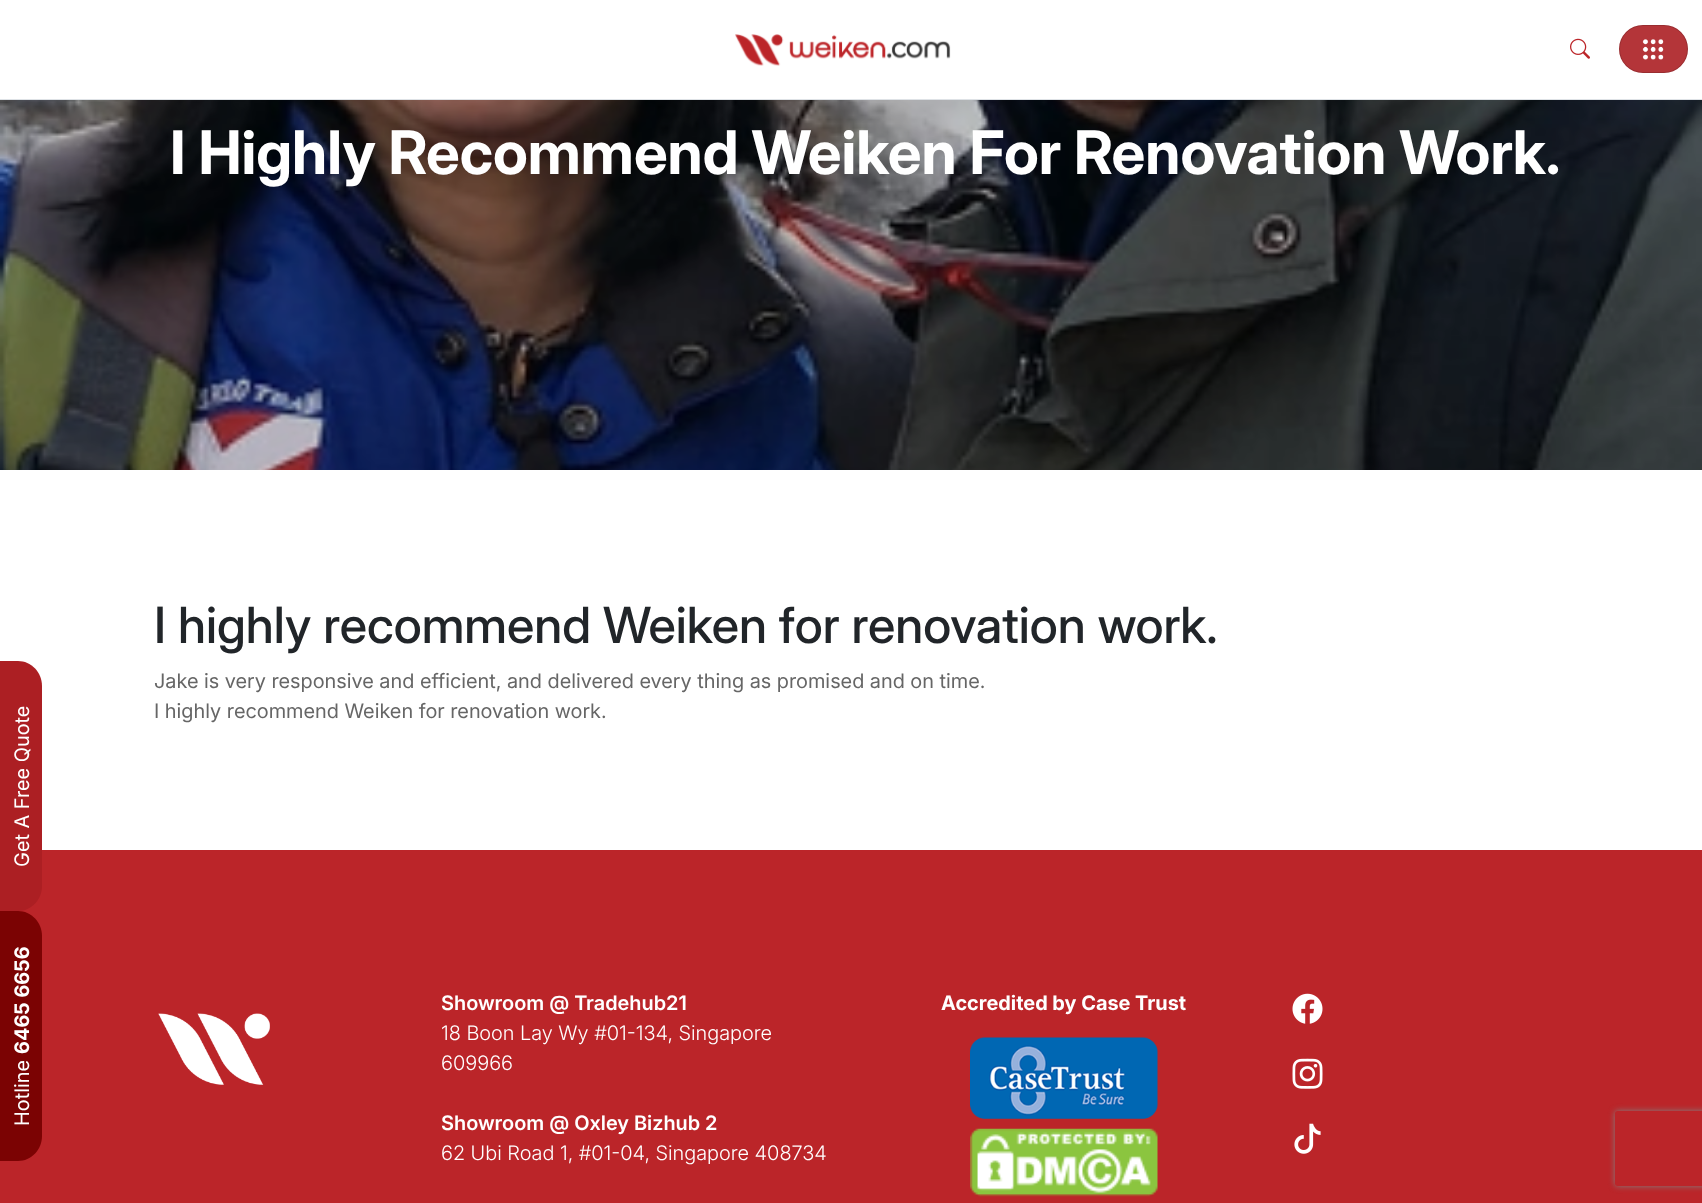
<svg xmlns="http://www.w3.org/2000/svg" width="1702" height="1203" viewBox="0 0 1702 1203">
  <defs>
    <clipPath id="clip1"><path d="M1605 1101H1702V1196H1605ZM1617.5 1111H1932.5C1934 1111 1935 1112 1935 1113.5V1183.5C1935 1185 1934 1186 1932.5 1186H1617.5C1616 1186 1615 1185 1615 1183.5V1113.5C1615 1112 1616 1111 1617.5 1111Z" clip-rule="evenodd"/></clipPath>
  </defs>
  <rect width="100%" height="100%" fill="rgb(255,255,255)"/>
  <rect x="0" y="99" width="1702" height="1" fill="rgb(222,226,230)"/>
  <image x="735" y="34" width="216" height="32" href="pic1.png"/>
  <image x="1570" y="38" width="20" height="21" href="pic2.png"/>
  <rect x="1619" y="25" width="69" height="48" rx="24" fill="rgb(180,53,57)"/>
  <rect x="1619.5" y="25.5" width="68" height="47" rx="23.5" fill="none" stroke="rgba(0,0,0,0.15)"/>
  <image x="1642" y="39" width="22" height="21" href="pic3.png"/>
  <image x="0" y="100" width="1702" height="370" href="pic4.png"/>
  <text x="170" y="174" font-family="'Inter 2'" font-size="60" font-weight="bold" fill="rgb(255,255,255)">I Highly Recommend Weiken For Renovation Work.</text>
  <text x="154" y="643" font-family="Inter" font-size="50" font-weight="500" fill="rgb(33,37,41)">I highly recommend Weiken for renovation work.</text>
  <g font-family="Inter" font-size="20" fill="rgb(102,102,102)">
    <text>
      <tspan x="154" y="688">Jake is very responsive and efficient, and delivered every thing as promised and on time.</tspan>
      <tspan x="154" y="718">I highly recommend Weiken for renovation work.</tspan>
    </text>
  </g>
  <rect x="0" y="850" width="1702" height="353" fill="rgb(187,37,41)"/>
  <path d="M0 911V661H18C31 661 42 672 42 686V886C42 900 31 911 18 911Z" fill="rgb(172,31,35)"/>
  <text x="29" y="867" transform="rotate(-90 29 867)" font-family="Inter" font-size="20" fill="rgb(255,255,255)">Get A Free Quote</text>
  <path d="M0 1161V911H18C31 911 42 922 42 936V1136C42 1150 31 1161 18 1161Z" fill="rgb(123,3,3)"/>
  <text x="29" y="1054" transform="rotate(-90 29 1054)" font-family="Inter" font-size="20" font-weight="bold" fill="rgb(255,255,255)">6465 6656</text>
  <text x="29" y="1126" transform="rotate(-90 29 1126)" font-family="Inter" font-size="20" fill="rgb(255,255,255)">Hotline</text>
  <image x="158" y="1013" width="112" height="72" href="pic5.png"/>
  <text x="441" y="1010" font-family="Inter" font-size="20" font-weight="600" fill="rgb(255,255,255)">Showroom @ Tradehub21</text>
  <g font-family="Inter" font-size="20" font-weight="300" fill="rgb(255,255,255)">
    <text>
      <tspan x="441" y="1040">18 Boon Lay Wy #01-134, Singapore</tspan>
      <tspan x="441" y="1070">609966</tspan>
    </text>
  </g>
  <text x="441" y="1130" font-family="Inter" font-size="20" font-weight="600" fill="rgb(255,255,255)">Showroom @ Oxley Bizhub 2</text>
  <text x="441" y="1160" font-family="Inter" font-size="20" font-weight="300" fill="rgb(255,255,255)">62 Ubi Road 1, #01-04, Singapore 408734</text>
  <text x="941" y="1010" font-family="Inter" font-size="20" font-weight="bold" fill="rgb(255,255,255)">Accredited by Case Trust</text>
  <image x="970" y="1037" width="188" height="82" href="pic6.png"/>
  <image x="970" y="1128" width="188" height="69" href="pic7.png"/>
  <image x="1292" y="993" width="31" height="31" href="pic8.png"/>
  <image x="1292" y="1058" width="31" height="31" href="pic9.png"/>
  <image x="1294" y="1123" width="27" height="31" href="pic10.png"/>
  <g clip-path="url(#clip1)">
    <rect x="1615" y="1111" width="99" height="75" rx="2.5" fill="rgb(128,128,128)" filter="blur(3px)"/>
  </g>
</svg>
